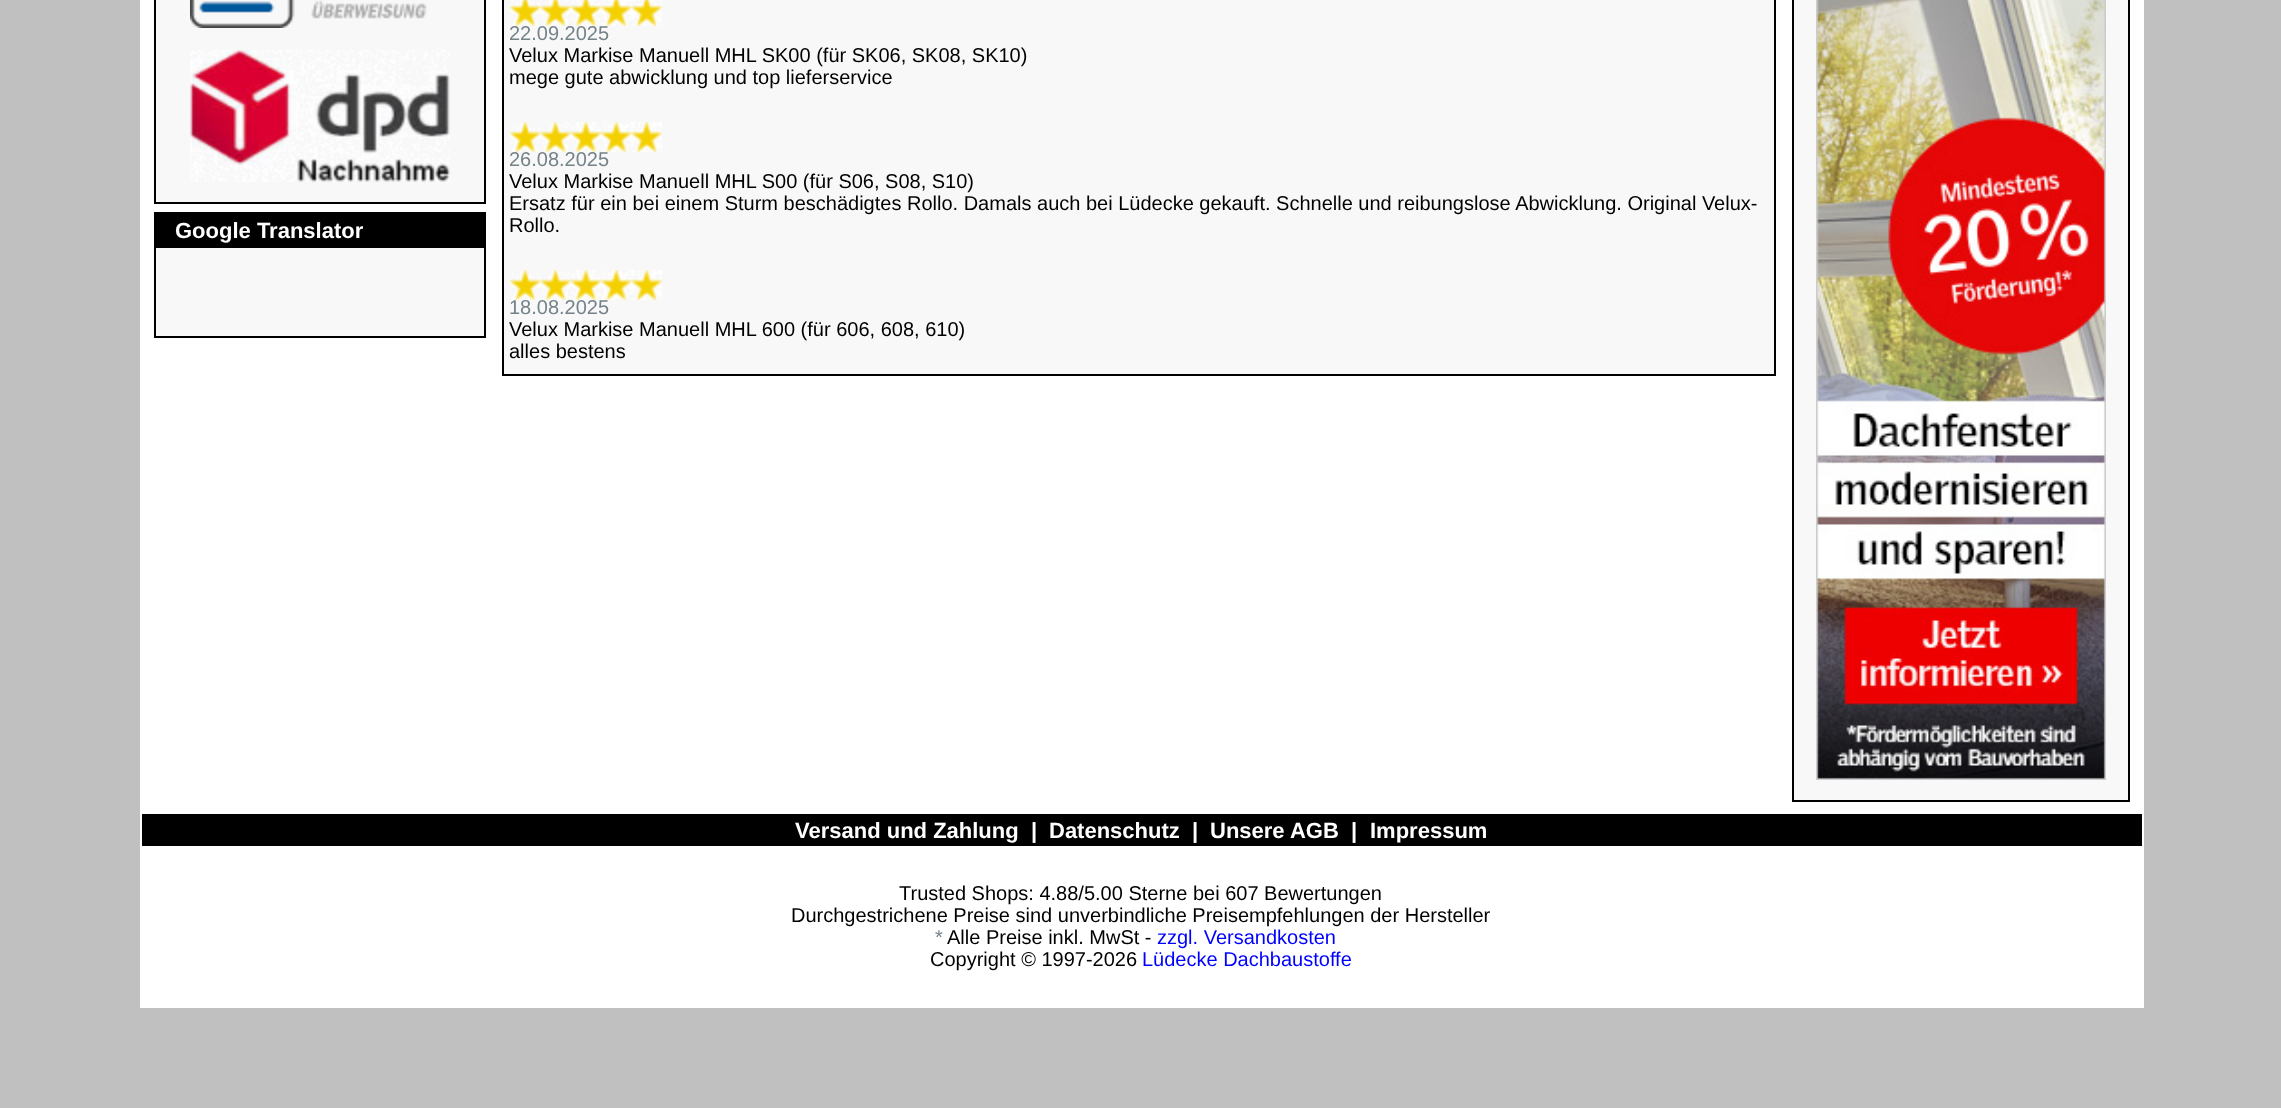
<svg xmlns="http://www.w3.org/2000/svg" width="2281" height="1108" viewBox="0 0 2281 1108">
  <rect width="100%" height="100%" fill="rgb(192,192,192)"/>
  <rect x="140" y="0" width="2004" height="1008" fill="rgb(255,255,255)"/>
  <rect x="154" y="0" width="332" height="204" fill="rgb(0,0,0)"/>
  <rect x="156" y="0" width="328" height="202" fill="rgb(248,248,249)"/>
  <image x="190" y="0" width="237" height="28" href="pic1.png"/>
  <image x="190" y="50" width="260" height="132" href="pic2.png"/>
  <rect x="154" y="212" width="332" height="126" fill="rgb(0,0,0)"/>
  <text x="175" y="238" font-family="Liberation Sans" font-size="22" font-weight="bold" fill="rgb(255,255,255)">Google Translator</text>
  <rect x="156" y="248" width="328" height="88" fill="rgb(248,248,249)"/>
  <rect x="502" y="0" width="1274" height="376" fill="rgb(0,0,0)"/>
  <rect x="504" y="0" width="1270" height="374" fill="rgb(248,248,249)"/>
  <image x="510" y="0" width="152" height="26" href="pic3.png"/>
  <text x="509" y="40" font-family="Liberation Sans" font-size="20" fill="rgb(117,131,137)">22.09.2025</text>
  <g font-family="Liberation Sans" font-size="20" fill="rgb(0,0,0)">
    <text>
      <tspan x="509" y="62">Velux Markise Manuell MHL SK00 (für SK06, SK08, SK10)</tspan>
      <tspan x="509" y="84">mege gute abwicklung und top lieferservice</tspan>
    </text>
  </g>
  <image x="510" y="122" width="152" height="30" href="pic4.png"/>
  <text x="509" y="166" font-family="Liberation Sans" font-size="20" fill="rgb(117,131,137)">26.08.2025</text>
  <g font-family="Liberation Sans" font-size="20" fill="rgb(0,0,0)">
    <text>
      <tspan x="509" y="188">Velux Markise Manuell MHL S00 (für S06, S08, S10)</tspan>
      <tspan x="509" y="210">Ersatz für ein bei einem Sturm beschädigtes Rollo. Damals auch bei Lüdecke gekauft. Schnelle und reibungslose Abwicklung. Original Velux-</tspan>
      <tspan x="509" y="232">Rollo.</tspan>
    </text>
  </g>
  <image x="510" y="270" width="152" height="30" href="pic4.png"/>
  <text x="509" y="314" font-family="Liberation Sans" font-size="20" fill="rgb(117,131,137)">18.08.2025</text>
  <g font-family="Liberation Sans" font-size="20" fill="rgb(0,0,0)">
    <text>
      <tspan x="509" y="336">Velux Markise Manuell MHL 600 (für 606, 608, 610)</tspan>
      <tspan x="509" y="358">alles bestens</tspan>
    </text>
  </g>
  <rect x="1792" y="0" width="338" height="802" fill="rgb(0,0,0)"/>
  <rect x="1794" y="0" width="334" height="800" fill="rgb(248,248,249)"/>
  <image x="1816" y="0" width="290" height="780" href="pic5.png"/>
  <rect x="142" y="814" width="2000" height="32" fill="rgb(0,0,0)"/>
  <g font-family="Liberation Sans" font-size="22" font-weight="bold" fill="rgb(255,255,255)">
    <text x="795" y="838">Versand und Zahlung</text>
    <text x="1031" y="838">|</text>
    <text x="1049" y="838">Datenschutz</text>
    <text x="1192" y="838">|</text>
    <text x="1210" y="838">Unsere AGB</text>
    <text x="1351" y="838">|</text>
    <text x="1370" y="838">Impressum</text>
  </g>
  <g font-family="Liberation Sans" font-size="20" fill="rgb(0,0,0)">
    <text x="899" y="900">Trusted Shops: 4.88/5.00 Sterne bei 607 Bewertungen</text>
    <text x="791" y="922">Durchgestrichene Preise sind unverbindliche Preisempfehlungen der Hersteller</text>
  </g>
  <text x="935" y="944" font-family="Liberation Sans" font-size="20" fill="rgb(117,131,137)">*</text>
  <text x="947" y="944" font-family="Liberation Sans" font-size="20" fill="rgb(0,0,0)">Alle Preise inkl. MwSt -</text>
  <text x="1157" y="944" font-family="Liberation Sans" font-size="20" fill="rgb(0,0,255)">zzgl. Versandkosten</text>
  <text x="930" y="966" font-family="Liberation Sans" font-size="20" fill="rgb(0,0,0)">Copyright © 1997-2026</text>
  <text x="1142" y="966" font-family="Liberation Sans" font-size="20" fill="rgb(0,0,255)">Lüdecke Dachbaustoffe</text>
</svg>
